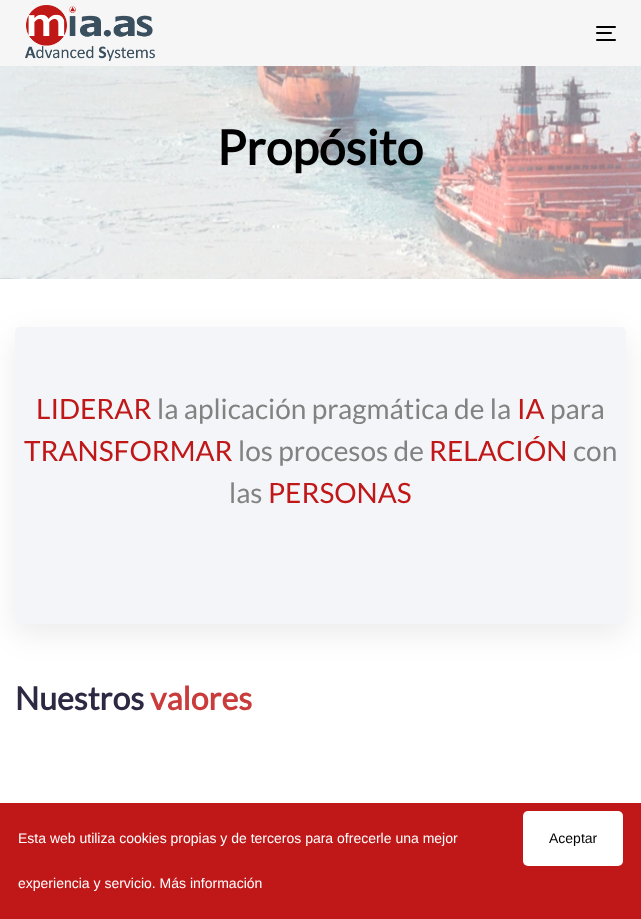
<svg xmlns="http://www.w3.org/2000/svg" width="641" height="919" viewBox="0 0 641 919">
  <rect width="100%" height="100%" fill="rgb(255,255,255)"/>
  <rect x="0" y="0" width="641" height="66" fill="rgb(246,246,246)"/>
  <image x="25" y="5" width="130" height="56" href="pic1.png"/>
  <rect x="596" y="26" width="20" height="2" rx="1" fill="rgb(0,0,0)"/>
  <rect x="596" y="32" width="16" height="2" rx="1" fill="rgb(0,0,0)"/>
  <rect x="596" y="39" width="20" height="2" rx="1" fill="rgb(0,0,0)"/>
  <image x="0" y="66" width="641" height="213" href="pic2.png"/>
  <text x="217" y="165" font-family="Lato" font-size="48" font-weight="bold" fill="rgb(0,0,0)">Propósito</text>
  <rect x="15" y="337" width="611" height="297" rx="5" fill="rgba(0,0,0,0.08)" filter="blur(15px)"/>
  <rect x="15" y="327" width="611" height="297" rx="5" fill="rgb(244,245,248)"/>
  <text x="36" y="419" font-family="Lato" font-size="28" fill="rgb(192,24,24)">LIDERAR</text>
  <text x="157" y="419" font-family="Lato" font-size="28" fill="rgb(130,130,130)">la aplicación pragmática de la</text>
  <text x="517" y="419" font-family="Lato" font-size="28" fill="rgb(192,24,24)">IA</text>
  <text x="550" y="419" font-family="Lato" font-size="28" fill="rgb(130,130,130)">para</text>
  <text x="24" y="461" font-family="Lato" font-size="28" fill="rgb(192,24,24)">TRANSFORMAR</text>
  <text x="238" y="461" font-family="Lato" font-size="28" fill="rgb(130,130,130)">los procesos de</text>
  <text x="429" y="461" font-family="Lato" font-size="28" fill="rgb(192,24,24)">RELACIÓN</text>
  <g font-family="Lato" font-size="28" fill="rgb(130,130,130)">
    <text x="573" y="461">con</text>
    <text x="229" y="503">las</text>
  </g>
  <text x="268" y="503" font-family="Lato" font-size="28" fill="rgb(192,24,24)">PERSONAS</text>
  <text x="15" y="710" font-family="Lato" font-size="32" font-weight="bold" fill="rgb(45,41,67)">Nuestros</text>
  <text x="150" y="710" font-family="Lato" font-size="32" font-weight="bold" fill="rgb(202,60,60)">valores</text>
  <rect x="0" y="803" width="641" height="116" fill="rgb(192,24,24)"/>
  <g font-family="Liberation Sans" font-size="14" fill="rgb(255,255,255)">
    <text x="18" y="843">Esta web utiliza cookies propias y de terceros para ofrecerle una mejor</text>
    <text x="18" y="888">experiencia y servicio. Más información</text>
  </g>
  <rect x="523" y="811" width="100" height="55" rx="5" fill="rgb(255,255,255)"/>
  <text x="549" y="843" font-family="Liberation Sans" font-size="14" fill="rgb(0,0,0)">Aceptar</text>
</svg>
